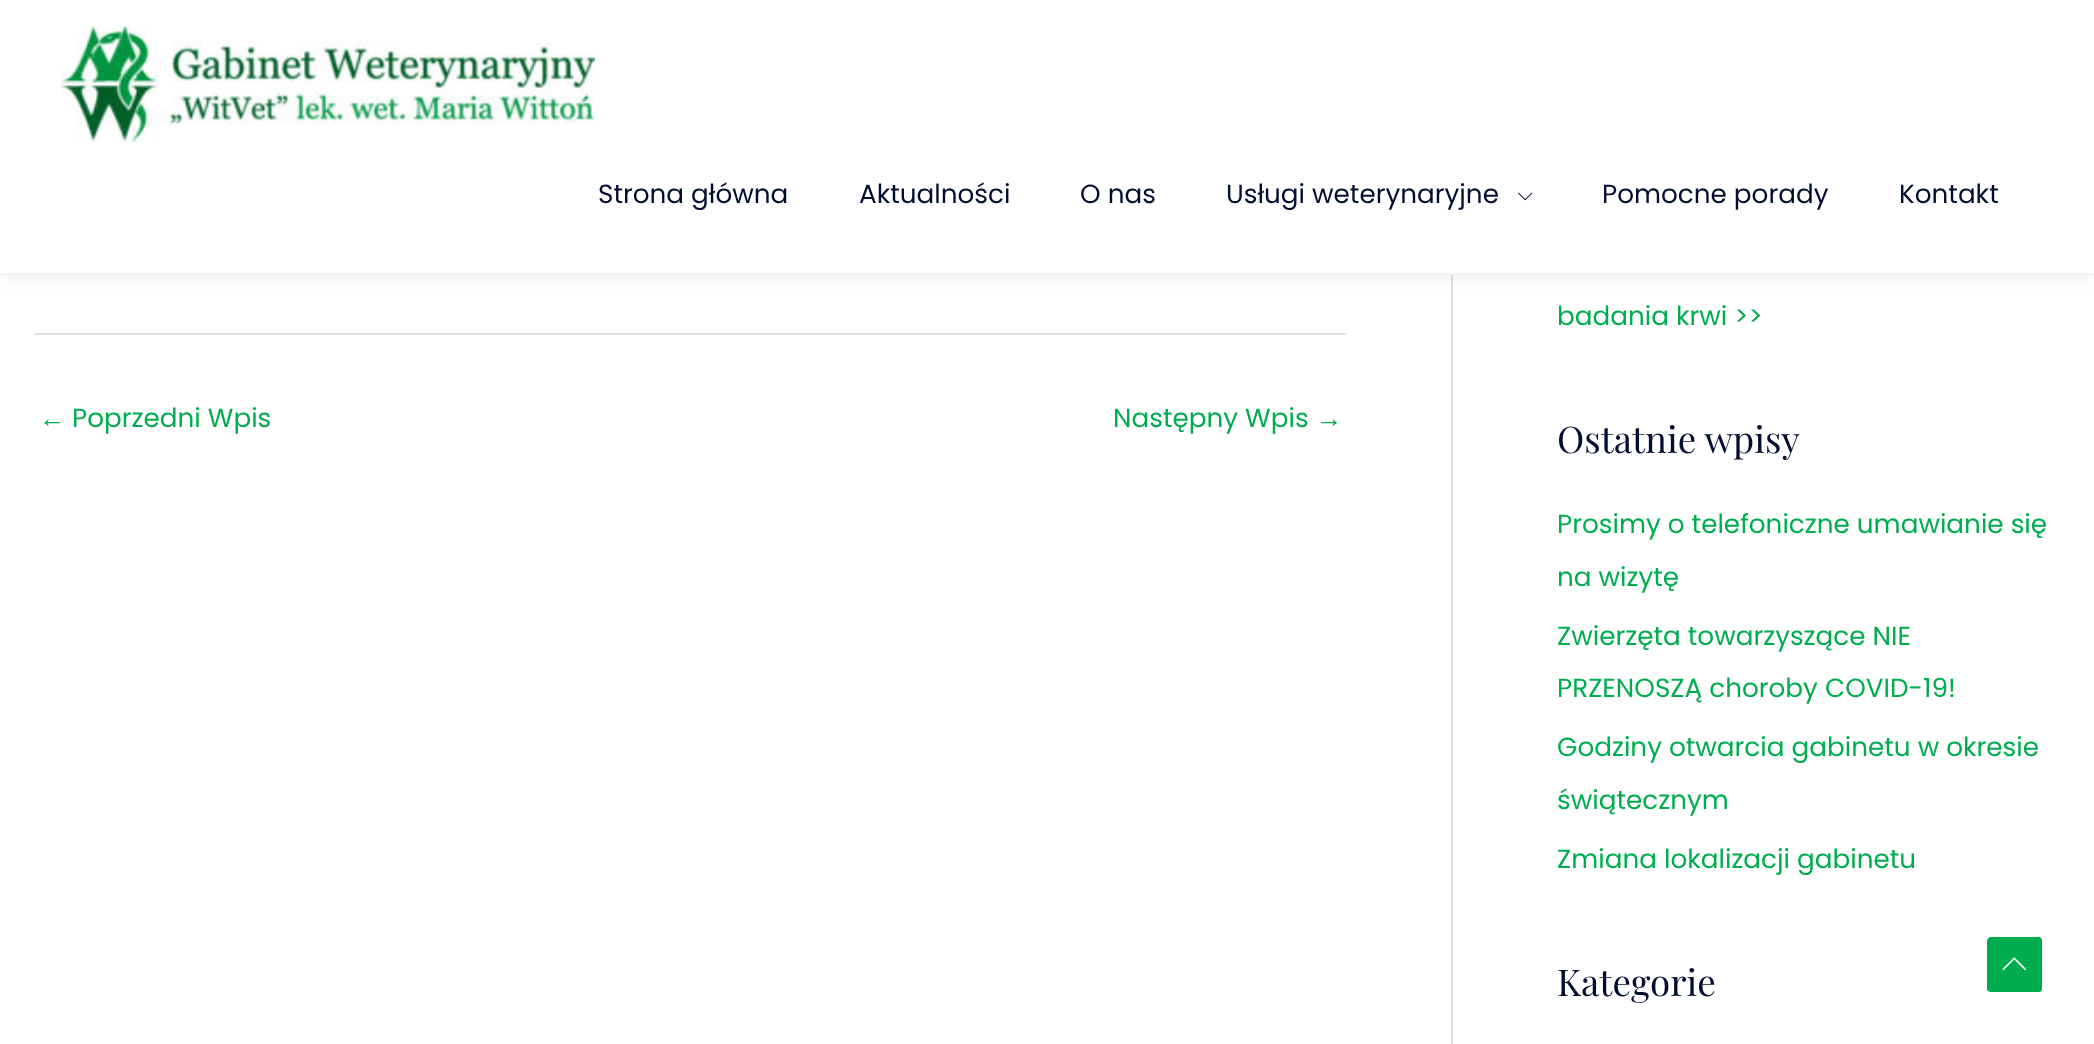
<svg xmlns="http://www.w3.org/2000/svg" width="2094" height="1044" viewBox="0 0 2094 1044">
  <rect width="100%" height="100%" fill="rgb(255,255,255)"/>
  <rect x="1451" y="275" width="2" height="769" fill="rgb(221,221,221)"/>
  <rect x="0" y="4" width="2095" height="274" fill="rgba(36,50,66,0.07)" filter="blur(9px)"/>
  <rect x="0" y="0" width="2094" height="273" fill="rgb(255,255,255)"/>
  <rect x="0" y="273" width="2094" height="2" fill="rgb(242,242,242)"/>
  <image x="61" y="26" width="534" height="116" href="pic1.png"/>
  <g font-family="Poppins" font-size="26.25" fill="rgb(0,12,48)">
    <text x="598" y="203">Strona główna</text>
    <text x="859" y="203">Aktualności</text>
    <text x="1080" y="203">O nas</text>
    <text x="1226" y="203">Usługi weterynaryjne</text>
  </g>
  <image x="1518" y="192" width="15" height="9" href="pic2.png"/>
  <g font-family="Poppins" font-size="26.25" fill="rgb(0,12,48)">
    <text x="1602" y="203">Pomocne porady</text>
    <text x="1899" y="203">Kontakt</text>
  </g>
  <rect x="35" y="333" width="1311" height="2" fill="rgb(221,221,221)"/>
  <text x="39" y="427" font-family="Liberation Sans" font-size="26.25" fill="rgb(0,173,78)">←</text>
  <g font-family="Poppins" font-size="26.25" fill="rgb(0,173,78)">
    <text x="72" y="427">Poprzedni Wpis</text>
    <text x="1113" y="427">Następny Wpis</text>
  </g>
  <text x="1316" y="427" font-family="Liberation Sans" font-size="26.25" fill="rgb(0,173,78)">→</text>
  <text x="1557" y="325" font-family="Poppins" font-size="26.25" fill="rgb(0,173,78)">badania krwi &gt;&gt;</text>
  <text x="1557" y="453" font-family="Playfair Display" font-size="36.75" fill="rgb(0,12,48)">Ostatnie wpisy</text>
  <g font-family="Poppins" font-size="26.25" fill="rgb(0,173,78)">
    <text x="1557" y="533">Prosimy o telefoniczne umawianie się</text>
    <text x="1557" y="586">na wizytę</text>
    <text>
      <tspan x="1557" y="645">Zwierzęta towarzyszące NIE</tspan>
      <tspan x="1557" y="697">PRZENOSZĄ choroby COVID-19!</tspan>
    </text>
    <text x="1557" y="756">Godziny otwarcia gabinetu w okresie</text>
    <text x="1557" y="809">świątecznym</text>
    <text x="1557" y="868">Zmiana lokalizacji gabinetu</text>
  </g>
  <text x="1557" y="996" font-family="Playfair Display" font-size="36.75" fill="rgb(0,12,48)">Kategorie</text>
  <path d="M2039 992H1991C1989 992 1987 991 1987 989V941C1987 939 1989 937 1991 937H2039C2041 937 2042 939 2042 941V989C2042 991 2041 992 2039 992Z" fill="rgb(0,173,78)"/>
  <image x="2002" y="957" width="24" height="14" href="pic3.png"/>
</svg>
